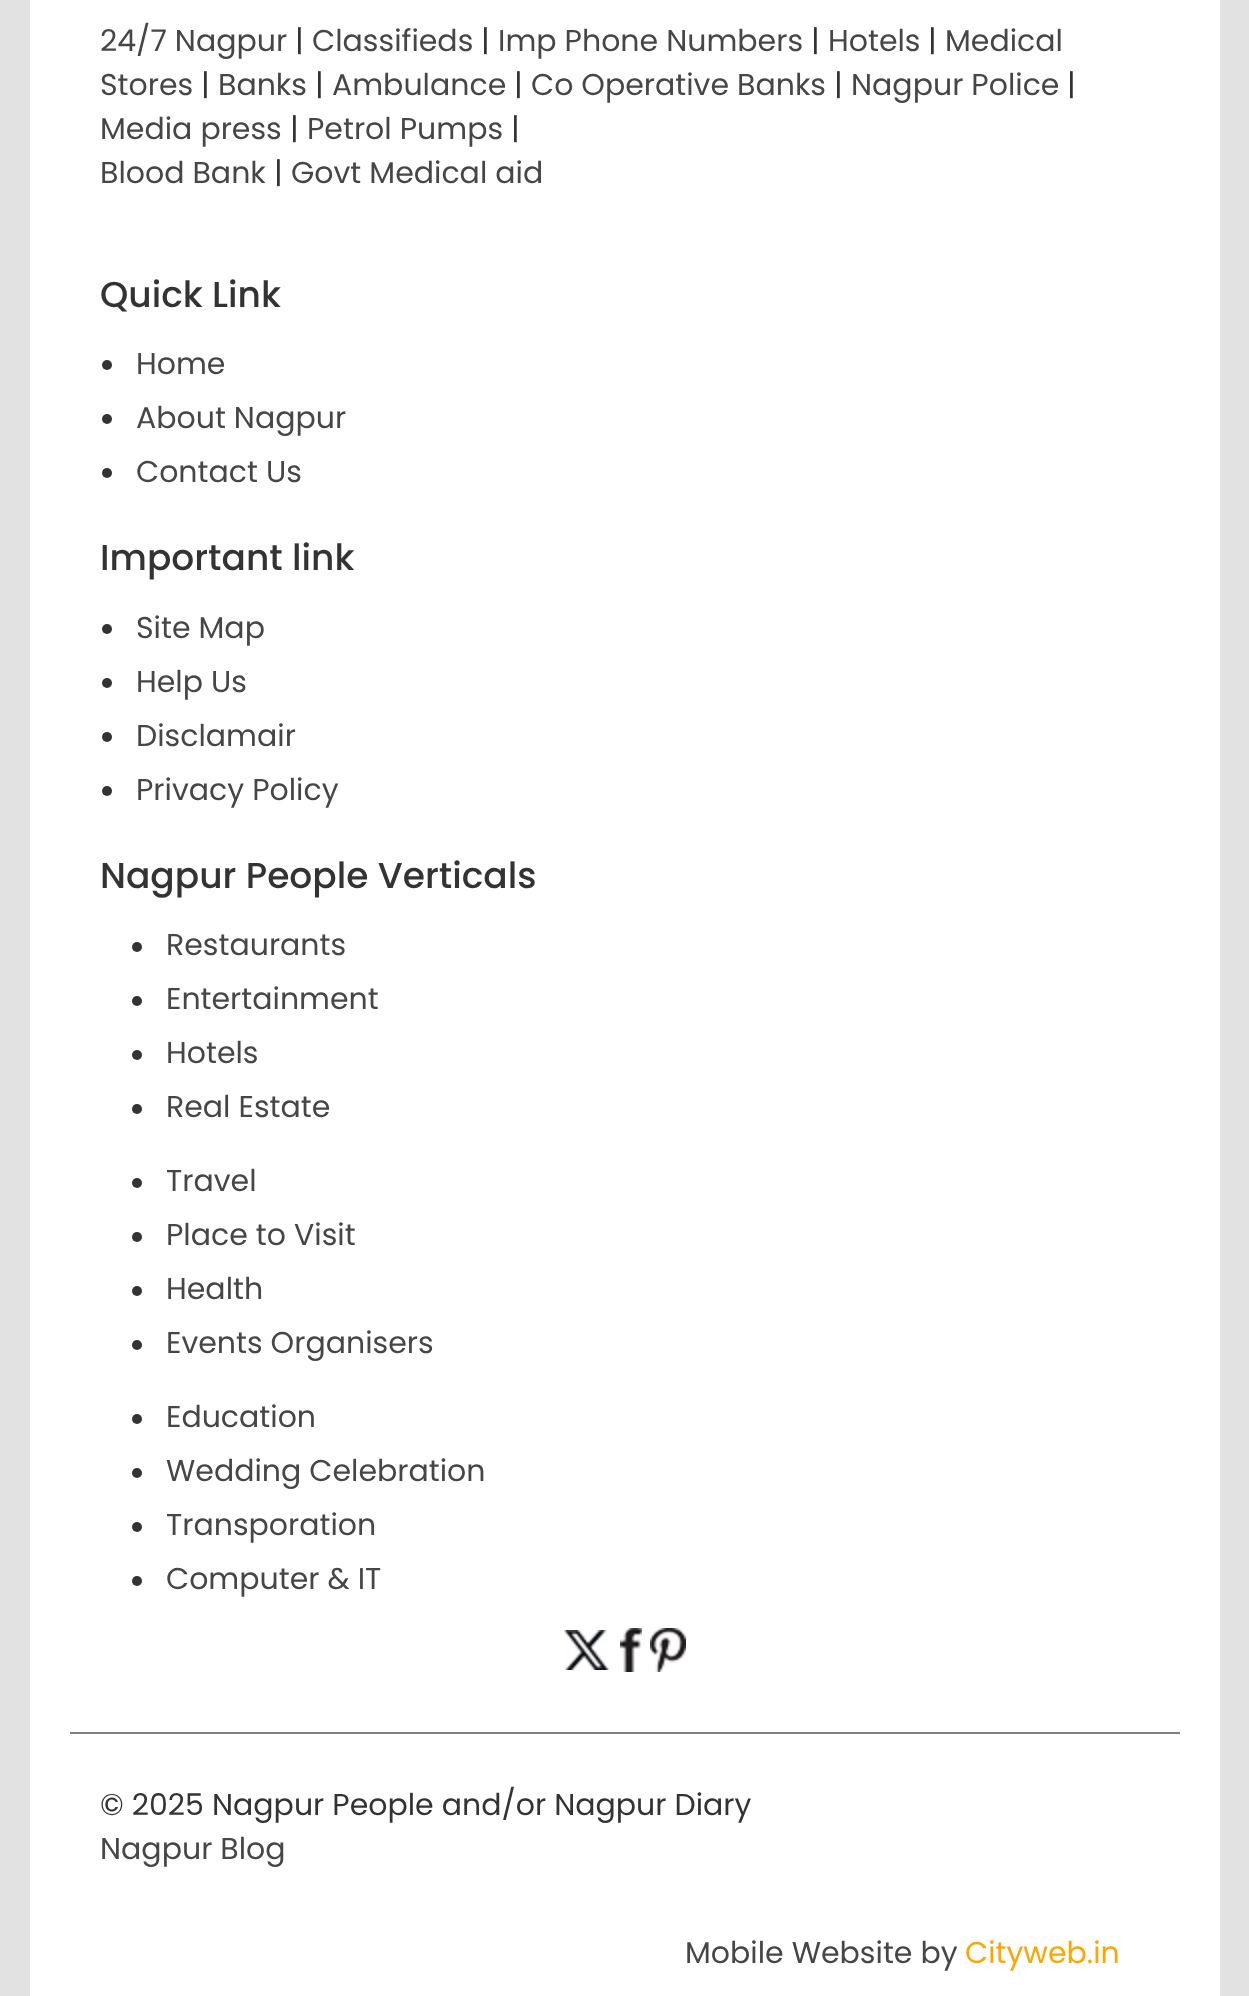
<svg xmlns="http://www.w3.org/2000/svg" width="1249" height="1996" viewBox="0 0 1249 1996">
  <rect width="100%" height="100%" fill="rgb(225,226,225)"/>
  <rect x="30" y="0" width="1190" height="1996" fill="rgb(255,255,255)"/>
  <text x="100" y="51" font-family="Poppins" font-size="30" fill="rgb(70,70,71)">24/7 Nagpur</text>
  <text x="295" y="51" font-family="Poppins" font-size="30" fill="rgb(51,51,51)">|</text>
  <text x="312" y="51" font-family="Poppins" font-size="30" fill="rgb(70,70,71)">Classifieds</text>
  <text x="481" y="51" font-family="Poppins" font-size="30" fill="rgb(51,51,51)">|</text>
  <text x="498" y="51" font-family="Poppins" font-size="30" fill="rgb(70,70,71)">Imp Phone Numbers</text>
  <text x="811" y="51" font-family="Poppins" font-size="30" fill="rgb(51,51,51)">|</text>
  <text x="828" y="51" font-family="Poppins" font-size="30" fill="rgb(70,70,71)">Hotels</text>
  <text x="928" y="51" font-family="Poppins" font-size="30" fill="rgb(51,51,51)">|</text>
  <g font-family="Poppins" font-size="30" fill="rgb(70,70,71)">
    <text x="945" y="51">Medical</text>
    <text x="100" y="95">Stores</text>
  </g>
  <text x="201" y="95" font-family="Poppins" font-size="30" fill="rgb(51,51,51)">|</text>
  <text x="218" y="95" font-family="Poppins" font-size="30" fill="rgb(70,70,71)">Banks</text>
  <text x="315" y="95" font-family="Poppins" font-size="30" fill="rgb(51,51,51)">|</text>
  <text x="332" y="95" font-family="Poppins" font-size="30" fill="rgb(70,70,71)">Ambulance</text>
  <text x="514" y="95" font-family="Poppins" font-size="30" fill="rgb(51,51,51)">|</text>
  <text x="531" y="95" font-family="Poppins" font-size="30" fill="rgb(70,70,71)">Co Operative Banks</text>
  <text x="834" y="95" font-family="Poppins" font-size="30" fill="rgb(51,51,51)">|</text>
  <text x="851" y="95" font-family="Poppins" font-size="30" fill="rgb(70,70,71)">Nagpur Police</text>
  <text x="1067" y="95" font-family="Poppins" font-size="30" fill="rgb(51,51,51)">|</text>
  <text x="100" y="139" font-family="Poppins" font-size="30" fill="rgb(70,70,71)">Media press</text>
  <text x="290" y="139" font-family="Poppins" font-size="30" fill="rgb(51,51,51)">|</text>
  <text x="307" y="139" font-family="Poppins" font-size="30" fill="rgb(70,70,71)">Petrol Pumps</text>
  <text x="511" y="139" font-family="Poppins" font-size="30" fill="rgb(51,51,51)">|</text>
  <text x="100" y="183" font-family="Poppins" font-size="30" fill="rgb(70,70,71)">Blood Bank</text>
  <text x="274" y="183" font-family="Poppins" font-size="30" fill="rgb(51,51,51)">|</text>
  <text x="291" y="183" font-family="Poppins" font-size="30" fill="rgb(70,70,71)">Govt Medical aid</text>
  <text x="100" y="307" font-family="Poppins" font-size="36" font-weight="500" fill="rgb(51,51,51)">Quick Link</text>
  <circle cx="107" cy="365" r="5" fill="rgb(51,51,51)"/>
  <text x="136" y="374" font-family="Poppins" font-size="30" fill="rgb(70,70,71)">Home</text>
  <circle cx="107" cy="419" r="5" fill="rgb(51,51,51)"/>
  <text x="136" y="428" font-family="Poppins" font-size="30" fill="rgb(70,70,71)">About Nagpur</text>
  <circle cx="107" cy="473" r="5" fill="rgb(51,51,51)"/>
  <text x="136" y="482" font-family="Poppins" font-size="30" fill="rgb(70,70,71)">Contact Us</text>
  <text x="100" y="570" font-family="Poppins" font-size="36" font-weight="500" fill="rgb(51,51,51)">Important link</text>
  <circle cx="107" cy="629" r="5" fill="rgb(51,51,51)"/>
  <text x="136" y="638" font-family="Poppins" font-size="30" fill="rgb(70,70,71)">Site Map</text>
  <circle cx="107" cy="683" r="5" fill="rgb(51,51,51)"/>
  <text x="136" y="692" font-family="Poppins" font-size="30" fill="rgb(70,70,71)">Help Us</text>
  <circle cx="107" cy="737" r="5" fill="rgb(51,51,51)"/>
  <text x="136" y="746" font-family="Poppins" font-size="30" fill="rgb(70,70,71)">Disclamair</text>
  <circle cx="107" cy="791" r="5" fill="rgb(51,51,51)"/>
  <text x="136" y="800" font-family="Poppins" font-size="30" fill="rgb(70,70,71)">Privacy Policy</text>
  <text x="100" y="888" font-family="Poppins" font-size="36" font-weight="500" fill="rgb(51,51,51)">Nagpur People Verticals</text>
  <circle cx="137" cy="947" r="5" fill="rgb(51,51,51)"/>
  <text x="166" y="955" font-family="Poppins" font-size="30" fill="rgb(70,70,71)">Restaurants</text>
  <circle cx="137" cy="1001" r="5" fill="rgb(51,51,51)"/>
  <text x="166" y="1009" font-family="Poppins" font-size="30" fill="rgb(70,70,71)">Entertainment</text>
  <circle cx="137" cy="1055" r="5" fill="rgb(51,51,51)"/>
  <text x="166" y="1063" font-family="Poppins" font-size="30" fill="rgb(70,70,71)">Hotels</text>
  <circle cx="137" cy="1109" r="5" fill="rgb(51,51,51)"/>
  <text x="166" y="1117" font-family="Poppins" font-size="30" fill="rgb(70,70,71)">Real Estate</text>
  <circle cx="137" cy="1183" r="5" fill="rgb(51,51,51)"/>
  <text x="166" y="1191" font-family="Poppins" font-size="30" fill="rgb(70,70,71)">Travel</text>
  <circle cx="137" cy="1237" r="5" fill="rgb(51,51,51)"/>
  <text x="166" y="1245" font-family="Poppins" font-size="30" fill="rgb(70,70,71)">Place to Visit</text>
  <circle cx="137" cy="1291" r="5" fill="rgb(51,51,51)"/>
  <text x="166" y="1299" font-family="Poppins" font-size="30" fill="rgb(70,70,71)">Health</text>
  <circle cx="137" cy="1345" r="5" fill="rgb(51,51,51)"/>
  <text x="166" y="1353" font-family="Poppins" font-size="30" fill="rgb(70,70,71)">Events Organisers</text>
  <circle cx="137" cy="1419" r="5" fill="rgb(51,51,51)"/>
  <text x="166" y="1427" font-family="Poppins" font-size="30" fill="rgb(70,70,71)">Education</text>
  <circle cx="137" cy="1473" r="5" fill="rgb(51,51,51)"/>
  <text x="166" y="1481" font-family="Poppins" font-size="30" fill="rgb(70,70,71)">Wedding Celebration</text>
  <circle cx="137" cy="1527" r="5" fill="rgb(51,51,51)"/>
  <text x="166" y="1535" font-family="Poppins" font-size="30" fill="rgb(70,70,71)">Transporation</text>
  <circle cx="137" cy="1581" r="5" fill="rgb(51,51,51)"/>
  <text x="166" y="1589" font-family="Poppins" font-size="30" fill="rgb(70,70,71)">Computer &amp; IT</text>
  <image x="564" y="1630" width="46" height="40" href="pic1.png"/>
  <image x="620" y="1628" width="22" height="44" href="pic2.png"/>
  <image x="650" y="1628" width="36" height="44" href="pic3.png"/>
  <rect x="70" y="1732" width="1110" height="2" fill="rgb(128,128,128)"/>
  <text x="100" y="1815" font-family="Poppins" font-size="30" fill="rgb(51,51,51)">© 2025 Nagpur People and/or Nagpur Diary</text>
  <g font-family="Poppins" font-size="30" fill="rgb(70,70,71)">
    <text x="100" y="1859">Nagpur Blog</text>
    <text x="685" y="1963">Mobile Website by</text>
  </g>
  <text x="965" y="1963" font-family="Poppins" font-size="30" fill="rgb(255,165,0)">Cityweb.in</text>
</svg>
